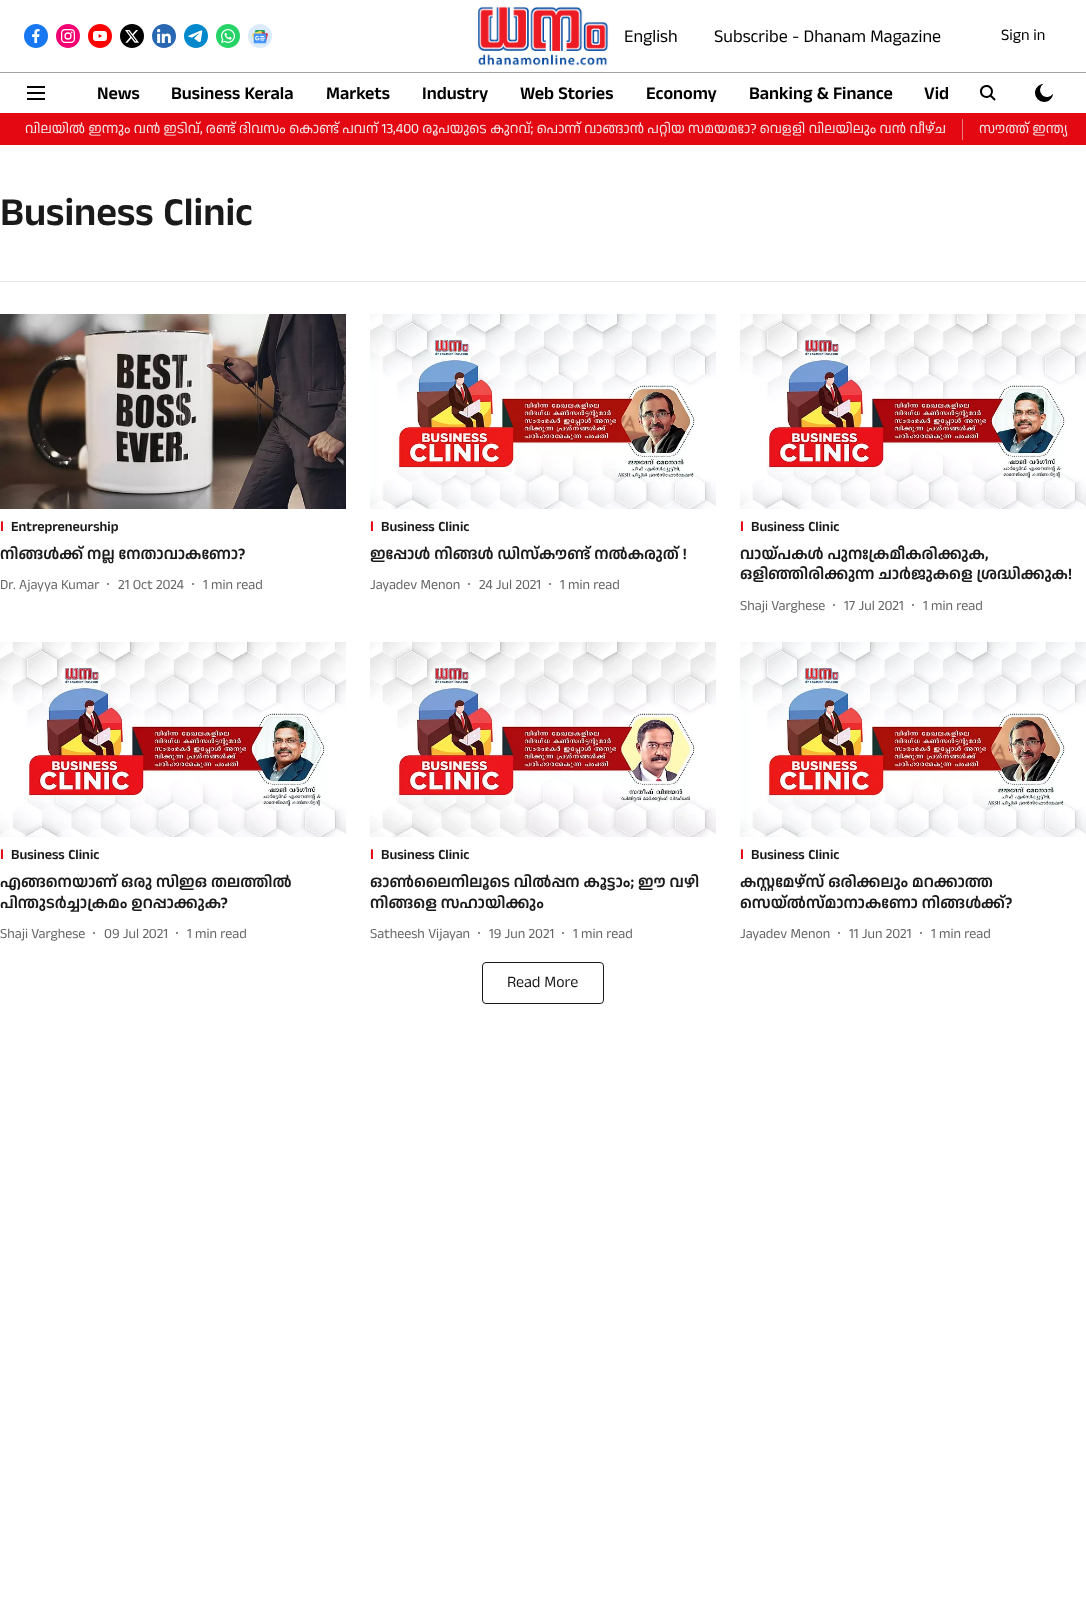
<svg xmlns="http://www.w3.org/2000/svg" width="1086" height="1624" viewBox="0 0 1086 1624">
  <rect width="100%" height="100%" fill="rgb(255,255,255)"/>
  <rect x="0" y="72" width="1086" height="1" fill="rgb(164,164,164)"/>
  <image x="24" y="24" width="24" height="24" href="pic1.png"/>
  <image x="56" y="24" width="24" height="24" href="pic2.png"/>
  <image x="88" y="24" width="24" height="24" href="pic3.png"/>
  <image x="120" y="24" width="24" height="24" href="pic4.png"/>
  <image x="152" y="24" width="24" height="24" href="pic5.png"/>
  <image x="184" y="24" width="24" height="24" href="pic6.png"/>
  <image x="216" y="24" width="24" height="24" href="pic7.png"/>
  <image x="248" y="24" width="24" height="24" href="pic8.png"/>
  <image x="478" y="6" width="131" height="60" href="pic9.png"/>
  <g font-family="Anek Malayalam" font-size="18" fill="rgb(0,0,0)">
    <text x="624" y="42">English</text>
    <text x="714" y="42">Subscribe - Dhanam Magazine</text>
  </g>
  <text x="1001" y="40" font-family="Anek Malayalam" font-size="16" fill="rgb(0,0,0)">Sign in</text>
  <image x="27" y="86" width="18" height="14" href="pic10.png"/>
  <g font-family="Anek Malayalam" font-size="18" font-weight="600" fill="rgb(0,0,0)">
    <text x="97" y="99">News</text>
    <text x="171" y="99">Business Kerala</text>
    <text x="326" y="99">Markets</text>
    <text x="422" y="99">Industry</text>
    <text x="520" y="99">Web Stories</text>
    <text x="646" y="99">Economy</text>
    <text x="749" y="99">Banking &amp; Finance</text>
    <text x="924" y="99">Vid</text>
  </g>
  <image x="979" y="85" width="17" height="16" href="pic11.png"/>
  <image x="1035" y="84" width="18" height="18" href="pic12.png"/>
  <rect x="0" y="113" width="1086" height="32" fill="rgb(228,8,19)"/>
  <text x="25" y="133" font-family="Anek Malayalam" font-size="14" fill="rgb(240,240,240)">വിലയില്‍ ഇന്നും വന്‍ ഇടിവ്, രണ്ട് ദിവസം കൊണ്ട് പവന് 13,400 രൂപയുടെ കുറവ്; പൊന്ന് വാങ്ങാന്‍ പറ്റിയ സമയമോ? വെളളി വിലയിലും വന്‍ വീഴ്ച</text>
  <rect x="962" y="119" width="1" height="21" fill="rgb(234,124,130)"/>
  <text x="979" y="133" font-family="Anek Malayalam" font-size="14" fill="rgb(240,240,240)">സൗത്ത് ഇന്ത്യ</text>
  <rect x="0" y="281" width="1086" height="1" fill="rgb(230,230,230)"/>
  <text x="0" y="225" font-family="Anek Malayalam" font-size="40" font-weight="600" fill="rgb(26,26,26)">Business Clinic</text>
  <image x="0" y="314" width="346" height="195" href="pic13.png"/>
  <text x="0" y="531" font-family="Liberation Sans" font-size="14" font-weight="bold" fill="rgb(228,8,19)">I</text>
  <text x="11" y="531" font-family="Anek Malayalam" font-size="14" font-weight="600" fill="rgb(26,26,26)">Entrepreneurship</text>
  <text x="0" y="559" font-family="Anek Malayalam" font-size="16" font-weight="600" fill="rgb(26,26,26)">നിങ്ങള്‍ക്ക് നല്ല നേതാവാകണോ?</text>
  <text x="0" y="589" font-family="Anek Malayalam" font-size="14" fill="rgb(102,102,102)">Dr. Ajayya Kumar</text>
  <circle cx="108" cy="584" r="1" fill="rgb(102,102,102)"/>
  <text x="118" y="589" font-family="Anek Malayalam" font-size="14" fill="rgb(102,102,102)">21 Oct 2024</text>
  <circle cx="193" cy="584" r="1" fill="rgb(102,102,102)"/>
  <text x="203" y="589" font-family="Anek Malayalam" font-size="14" fill="rgb(102,102,102)">1 min read</text>
  <image x="370" y="314" width="346" height="195" href="pic14.png"/>
  <text x="370" y="531" font-family="Liberation Sans" font-size="14" font-weight="bold" fill="rgb(228,8,19)">I</text>
  <text x="381" y="531" font-family="Anek Malayalam" font-size="14" font-weight="600" fill="rgb(26,26,26)">Business Clinic</text>
  <text x="370" y="559" font-family="Anek Malayalam" font-size="16" font-weight="600" fill="rgb(26,26,26)">ഇപ്പോള്‍ നിങ്ങള്‍ ഡിസ്‌കൗണ്ട് നല്‍കരുത് !</text>
  <text x="370" y="589" font-family="Anek Malayalam" font-size="14" fill="rgb(102,102,102)">Jayadev Menon</text>
  <circle cx="469" cy="584" r="1" fill="rgb(102,102,102)"/>
  <text x="479" y="589" font-family="Anek Malayalam" font-size="14" fill="rgb(102,102,102)">24 Jul 2021</text>
  <circle cx="550" cy="584" r="1" fill="rgb(102,102,102)"/>
  <text x="560" y="589" font-family="Anek Malayalam" font-size="14" fill="rgb(102,102,102)">1 min read</text>
  <image x="740" y="314" width="346" height="195" href="pic15.png"/>
  <text x="740" y="531" font-family="Liberation Sans" font-size="14" font-weight="bold" fill="rgb(228,8,19)">I</text>
  <text x="751" y="531" font-family="Anek Malayalam" font-size="14" font-weight="600" fill="rgb(26,26,26)">Business Clinic</text>
  <g font-family="Anek Malayalam" font-size="16" font-weight="600" fill="rgb(26,26,26)">
    <text>
      <tspan x="740" y="559">വായ്പകള്‍ പുനഃക്രമീകരിക്കുക,</tspan>
      <tspan x="740" y="579">ഒളിഞ്ഞിരിക്കുന്ന ചാര്‍ജുകളെ ശ്രദ്ധിക്കുക!</tspan>
    </text>
  </g>
  <text x="740" y="610" font-family="Anek Malayalam" font-size="14" fill="rgb(102,102,102)">Shaji Varghese</text>
  <circle cx="834" cy="605" r="1" fill="rgb(102,102,102)"/>
  <text x="844" y="610" font-family="Anek Malayalam" font-size="14" fill="rgb(102,102,102)">17 Jul 2021</text>
  <circle cx="913" cy="605" r="1" fill="rgb(102,102,102)"/>
  <text x="923" y="610" font-family="Anek Malayalam" font-size="14" fill="rgb(102,102,102)">1 min read</text>
  <image x="0" y="642" width="346" height="195" href="pic15.png"/>
  <text x="0" y="859" font-family="Liberation Sans" font-size="14" font-weight="bold" fill="rgb(228,8,19)">I</text>
  <text x="11" y="859" font-family="Anek Malayalam" font-size="14" font-weight="600" fill="rgb(26,26,26)">Business Clinic</text>
  <g font-family="Anek Malayalam" font-size="16" font-weight="600" fill="rgb(26,26,26)">
    <text>
      <tspan x="0" y="887">എങ്ങനെയാണ് ഒരു സിഇഒ തലത്തില്‍</tspan>
      <tspan x="0" y="908">പിന്തുടര്‍ച്ചാക്രമം ഉറപ്പാക്കുക?</tspan>
    </text>
  </g>
  <text x="0" y="938" font-family="Anek Malayalam" font-size="14" fill="rgb(102,102,102)">Shaji Varghese</text>
  <circle cx="94" cy="933" r="1" fill="rgb(102,102,102)"/>
  <text x="104" y="938" font-family="Anek Malayalam" font-size="14" fill="rgb(102,102,102)">09 Jul 2021</text>
  <circle cx="177" cy="933" r="1" fill="rgb(102,102,102)"/>
  <text x="187" y="938" font-family="Anek Malayalam" font-size="14" fill="rgb(102,102,102)">1 min read</text>
  <image x="370" y="642" width="346" height="195" href="pic16.png"/>
  <text x="370" y="859" font-family="Liberation Sans" font-size="14" font-weight="bold" fill="rgb(228,8,19)">I</text>
  <text x="381" y="859" font-family="Anek Malayalam" font-size="14" font-weight="600" fill="rgb(26,26,26)">Business Clinic</text>
  <g font-family="Anek Malayalam" font-size="16" font-weight="600" fill="rgb(26,26,26)">
    <text>
      <tspan x="370" y="887">ഓണ്‍ലൈനിലൂടെ വില്‍പ്പന കൂട്ടാം; ഈ വഴി</tspan>
      <tspan x="370" y="908">നിങ്ങളെ സഹായിക്കും</tspan>
    </text>
  </g>
  <text x="370" y="938" font-family="Anek Malayalam" font-size="14" fill="rgb(102,102,102)">Satheesh Vijayan</text>
  <circle cx="479" cy="933" r="1" fill="rgb(102,102,102)"/>
  <text x="489" y="938" font-family="Anek Malayalam" font-size="14" fill="rgb(102,102,102)">19 Jun 2021</text>
  <circle cx="563" cy="933" r="1" fill="rgb(102,102,102)"/>
  <text x="573" y="938" font-family="Anek Malayalam" font-size="14" fill="rgb(102,102,102)">1 min read</text>
  <image x="740" y="642" width="346" height="195" href="pic14.png"/>
  <text x="740" y="859" font-family="Liberation Sans" font-size="14" font-weight="bold" fill="rgb(228,8,19)">I</text>
  <text x="751" y="859" font-family="Anek Malayalam" font-size="14" font-weight="600" fill="rgb(26,26,26)">Business Clinic</text>
  <g font-family="Anek Malayalam" font-size="16" font-weight="600" fill="rgb(26,26,26)">
    <text>
      <tspan x="740" y="887">കസ്റ്റമേഴ്‌സ് ഒരിക്കലും മറക്കാത്ത</tspan>
      <tspan x="740" y="908">സെയ്ല്‍സ്മാനാകണോ നിങ്ങള്‍ക്ക്?</tspan>
    </text>
  </g>
  <text x="740" y="938" font-family="Anek Malayalam" font-size="14" fill="rgb(102,102,102)">Jayadev Menon</text>
  <circle cx="839" cy="933" r="1" fill="rgb(102,102,102)"/>
  <text x="849" y="938" font-family="Anek Malayalam" font-size="14" fill="rgb(102,102,102)">11 Jun 2021</text>
  <circle cx="921" cy="933" r="1" fill="rgb(102,102,102)"/>
  <text x="931" y="938" font-family="Anek Malayalam" font-size="14" fill="rgb(102,102,102)">1 min read</text>
  <rect x="482.5" y="962.5" width="121" height="41" rx="3.5" fill="none" stroke="rgb(26,26,26)"/>
  <text x="507" y="987" font-family="Anek Malayalam" font-size="16" fill="rgb(26,26,26)">Read More</text>
</svg>
